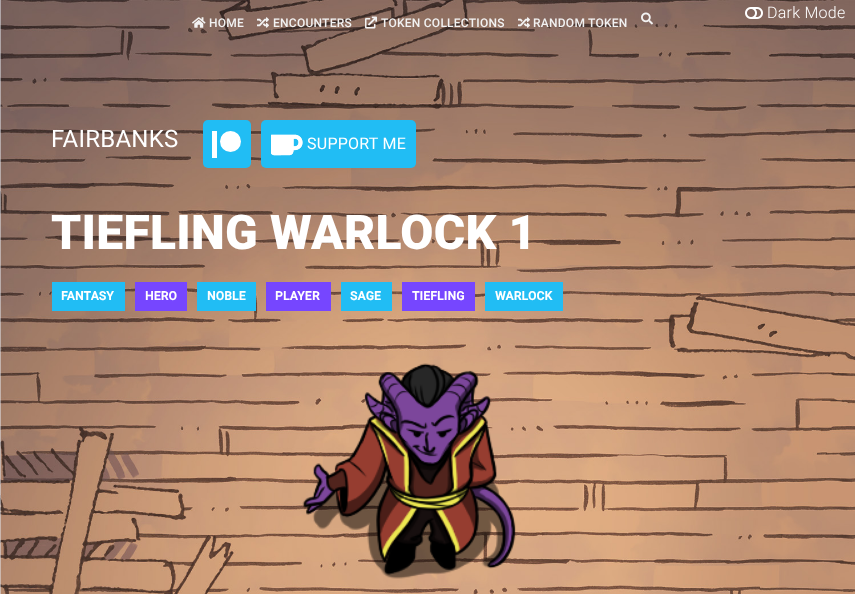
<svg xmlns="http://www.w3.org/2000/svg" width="855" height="594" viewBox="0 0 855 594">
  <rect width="100%" height="100%" fill="rgb(230,235,242)"/>
  <image x="0" y="0" width="855" height="594" href="pic7.png"/>
  <image x="745" y="7" width="18" height="12" href="pic1.png"/>
  <text x="767" y="18" font-family="Roboto" font-size="16" font-weight="300" letter-spacing="0.25" fill="rgb(255,255,255)">Dark Mode</text>
  <image x="192" y="17" width="14" height="11" href="pic2.png"/>
  <text x="209" y="27" font-family="Roboto" font-size="12" font-weight="500" letter-spacing="0.25" fill="rgb(242,242,242)">HOME</text>
  <image x="257" y="17" width="12" height="11" href="pic3.png"/>
  <text x="273" y="27" font-family="Roboto" font-size="12" font-weight="500" letter-spacing="0.25" fill="rgb(242,242,242)">ENCOUNTERS</text>
  <image x="365" y="16" width="12" height="13" href="pic4.png"/>
  <text x="381" y="27" font-family="Roboto" font-size="12" font-weight="500" letter-spacing="0.25" fill="rgb(242,242,242)">TOKEN COLLECTIONS</text>
  <image x="518" y="17" width="12" height="11" href="pic5.png"/>
  <text x="533" y="27" font-family="Roboto" font-size="12" font-weight="500" letter-spacing="0.25" fill="rgb(242,242,242)">RANDOM TOKEN</text>
  <image x="641" y="12" width="12" height="13" href="pic6.png"/>
  <text x="51" y="147" font-family="Roboto" font-size="24" letter-spacing="0.25" fill="rgb(255,255,255)">FAIRBANKS</text>
  <rect x="203" y="120" width="48" height="48" rx="5" fill="rgb(33,189,244)"/>
  <rect x="212" y="131" width="5" height="27" fill="rgb(255,255,255)"/>
  <circle cx="230.5" cy="141.5" r="10.5" fill="rgb(255,255,255)"/>
  <rect x="261" y="120" width="155" height="48" rx="5" fill="rgb(33,189,244)"/>
  <image x="271" y="134" width="32" height="22" href="pic8.png"/>
  <text x="307" y="149" font-family="Roboto" font-size="16" letter-spacing="0.25" fill="rgb(255,255,255)">SUPPORT ME</text>
  <text x="51" y="249" font-family="Roboto" font-size="48" font-weight="900" letter-spacing="0.25" fill="rgb(255,255,255)">TIEFLING WARLOCK 1</text>
  <rect x="52" y="282" width="73" height="29" fill="rgb(33,189,244)"/>
  <text x="61" y="300" font-family="Roboto" font-size="12" font-weight="bold" letter-spacing="0.25" fill="rgb(255,255,255)">FANTASY</text>
  <rect x="135" y="282" width="52" height="29" fill="rgb(118,70,255)"/>
  <text x="145" y="300" font-family="Roboto" font-size="12" font-weight="bold" letter-spacing="0.25" fill="rgb(255,255,255)">HERO</text>
  <rect x="197" y="282" width="59" height="29" fill="rgb(33,189,244)"/>
  <text x="207" y="300" font-family="Roboto" font-size="12" font-weight="bold" letter-spacing="0.25" fill="rgb(255,255,255)">NOBLE</text>
  <rect x="266" y="282" width="65" height="29" fill="rgb(118,70,255)"/>
  <text x="275" y="300" font-family="Roboto" font-size="12" font-weight="bold" letter-spacing="0.25" fill="rgb(255,255,255)">PLAYER</text>
  <rect x="341" y="282" width="51" height="29" fill="rgb(33,189,244)"/>
  <text x="350" y="300" font-family="Roboto" font-size="12" font-weight="bold" letter-spacing="0.25" fill="rgb(255,255,255)">SAGE</text>
  <rect x="402" y="282" width="73" height="29" fill="rgb(118,70,255)"/>
  <text x="412" y="300" font-family="Roboto" font-size="12" font-weight="bold" letter-spacing="0.25" fill="rgb(255,255,255)">TIEFLING</text>
  <rect x="485" y="282" width="78" height="29" fill="rgb(33,189,244)"/>
  <text x="495" y="300" font-family="Roboto" font-size="12" font-weight="bold" letter-spacing="0.25" fill="rgb(255,255,255)">WARLOCK</text>
  <image x="302" y="363" width="214" height="216" href="pic9.png"/>
</svg>
